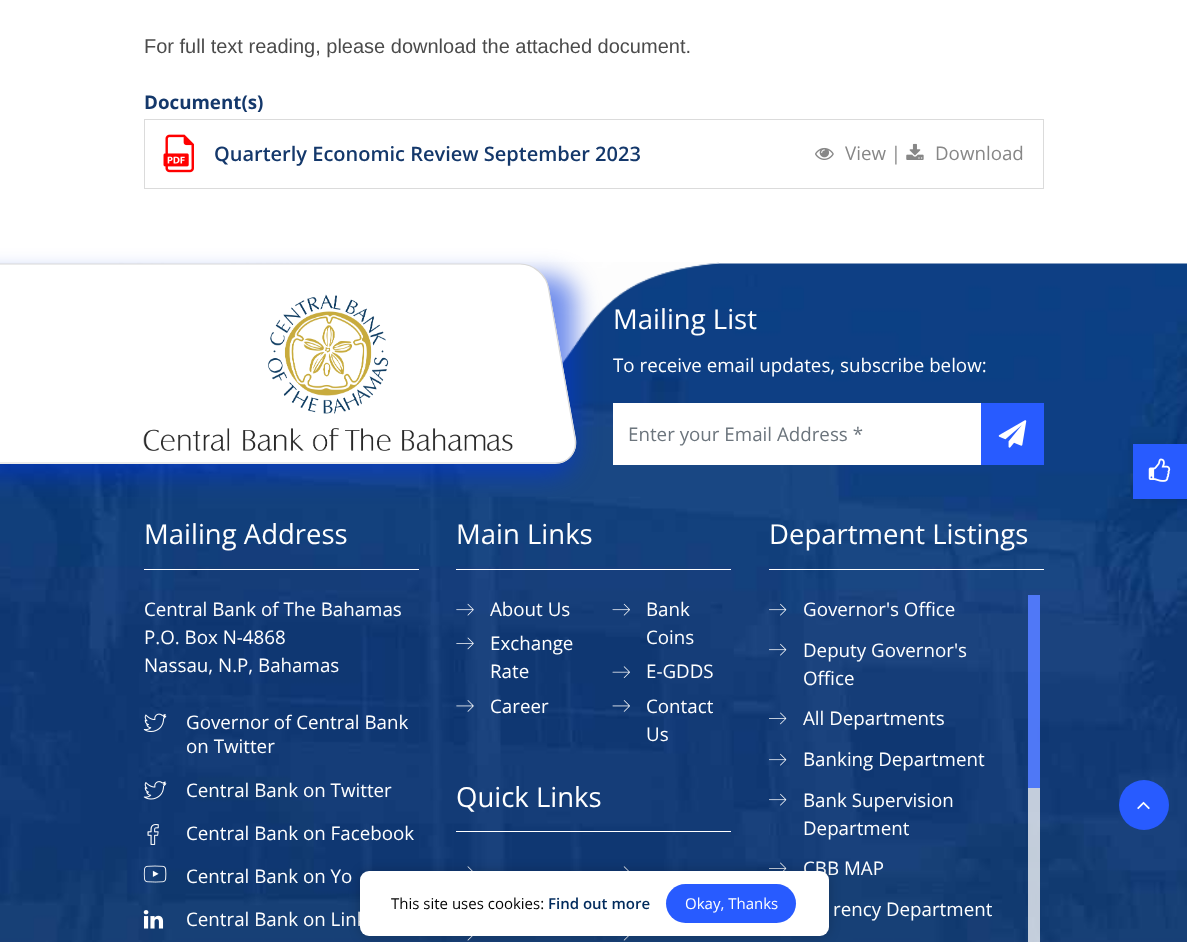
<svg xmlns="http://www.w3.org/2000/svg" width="1187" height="942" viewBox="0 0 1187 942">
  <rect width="100%" height="100%" fill="rgb(255,255,255)"/>
  <text x="144" y="53" font-family="Liberation Sans" font-size="20" fill="rgb(75,75,75)">For full text reading, please download the attached document.</text>
  <text x="144" y="109" font-family="Open Sans" font-size="18.75" font-weight="bold" fill="rgb(20,56,107)">Document(s)</text>
  <rect x="144.5" y="119.5" width="899" height="69" fill="none" stroke="rgb(219,219,219)"/>
  <image x="163" y="134" width="31" height="39" href="pic1.png"/>
  <text x="214" y="161" font-family="Open Sans" font-size="20" font-weight="600" fill="rgb(20,56,107)">Quarterly Economic Review September 2023</text>
  <image x="815" y="147" width="19" height="13" href="pic2.png"/>
  <text x="845" y="160" font-family="Open Sans" font-size="18.75" fill="rgb(135,135,135)">View |</text>
  <image x="906" y="143" width="18" height="17" href="pic3.png"/>
  <text x="935" y="160" font-family="Open Sans" font-size="18.75" fill="rgb(135,135,135)">Download</text>
  <image x="0" y="263" width="1187" height="679" href="pic4.png"/>
  <image x="0" y="262" width="719" height="104" href="pic5.png"/>
  <rect x="613" y="403" width="368" height="62" fill="rgb(255,255,255)"/>
  <rect x="-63" y="276" width="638" height="200" rx="25" fill="rgba(0,53,223,0.55)" filter="blur(12.5px)"/>
  <path d="M-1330 264H520C534 264 547 275 549 289L576 439C578 452 569 464 555 464H-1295Z" fill="rgb(255,255,255)"/>
  <path d="M-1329.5 264H520C533.5 264 546.5 275 548.5 288.5L575 438.5C577.5 452 568.5 463 555 463H-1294.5Z" fill="none" stroke="rgb(215,215,215)" stroke-width="1.2"/>
  <image x="143" y="294" width="370" height="157" href="pic6.png"/>
  <text x="613" y="329" font-family="Open Sans" font-size="27.5" fill="rgb(255,255,255)">Mailing List</text>
  <text x="613" y="372" font-family="Open Sans" font-size="18.75" fill="rgb(255,255,255)">To receive email updates, subscribe below:</text>
  <text x="628" y="441" font-family="Open Sans" font-size="18.75" fill="rgb(108,117,125)">Enter your Email Address *</text>
  <rect x="981" y="403" width="63" height="62" fill="rgb(40,91,255)"/>
  <image x="998" y="420" width="29" height="28" href="pic7.png"/>
  <rect x="144" y="569" width="275" height="1" fill="rgb(255,255,255)"/>
  <text x="144" y="544" font-family="Open Sans" font-size="27.5" fill="rgb(255,255,255)">Mailing Address</text>
  <g font-family="Open Sans" font-size="18.75" fill="rgb(255,255,255)">
    <text>
      <tspan x="144" y="616">Central Bank of The Bahamas</tspan>
      <tspan x="144" y="644">P.O. Box N-4868</tspan>
      <tspan x="144" y="672">Nassau, N.P, Bahamas</tspan>
    </text>
  </g>
  <image x="143" y="713" width="24" height="19" href="pic8.png"/>
  <g font-family="Open Sans" font-size="18.75" fill="rgb(255,255,255)">
    <text>
      <tspan x="186" y="729">Governor of Central Bank</tspan>
      <tspan x="186" y="753">on Twitter</tspan>
    </text>
  </g>
  <image x="143" y="781" width="24" height="19" href="pic9.png"/>
  <text x="186" y="797" font-family="Open Sans" font-size="18.75" fill="rgb(255,255,255)">Central Bank on Twitter</text>
  <image x="147" y="824" width="12" height="21" href="pic10.png"/>
  <text x="186" y="840" font-family="Open Sans" font-size="18.75" fill="rgb(255,255,255)">Central Bank on Facebook</text>
  <image x="143" y="865" width="24" height="18" href="pic11.png"/>
  <text x="186" y="883" font-family="Open Sans" font-size="18.75" fill="rgb(255,255,255)">Central Bank on Yo</text>
  <image x="143" y="910" width="21" height="19" href="pic12.png"/>
  <text x="186" y="926" font-family="Open Sans" font-size="18.75" fill="rgb(255,255,255)">Central Bank on Link</text>
  <rect x="456" y="569" width="275" height="1" fill="rgb(255,255,255)"/>
  <text x="456" y="544" font-family="Open Sans" font-size="27.5" fill="rgb(255,255,255)">Main Links</text>
  <image x="456" y="603" width="18" height="13" href="pic13.png"/>
  <text x="490" y="616" font-family="Open Sans" font-size="18.75" fill="rgb(255,255,255)">About Us</text>
  <image x="456" y="637" width="18" height="13" href="pic14.png"/>
  <g font-family="Open Sans" font-size="18.75" fill="rgb(255,255,255)">
    <text>
      <tspan x="490" y="650">Exchange</tspan>
      <tspan x="490" y="678">Rate</tspan>
    </text>
  </g>
  <image x="456" y="700" width="18" height="12" href="pic15.png"/>
  <text x="490" y="713" font-family="Open Sans" font-size="18.75" fill="rgb(255,255,255)">Career</text>
  <image x="612" y="603" width="18" height="13" href="pic16.png"/>
  <g font-family="Open Sans" font-size="18.75" fill="rgb(255,255,255)">
    <text>
      <tspan x="646" y="616">Bank</tspan>
      <tspan x="646" y="644">Coins</tspan>
    </text>
  </g>
  <image x="612" y="666" width="18" height="12" href="pic17.png"/>
  <text x="646" y="678" font-family="Open Sans" font-size="18.75" fill="rgb(255,255,255)">E-GDDS</text>
  <image x="612" y="700" width="18" height="12" href="pic18.png"/>
  <g font-family="Open Sans" font-size="18.75" fill="rgb(255,255,255)">
    <text>
      <tspan x="646" y="713">Contact</tspan>
      <tspan x="646" y="741">Us</tspan>
    </text>
  </g>
  <rect x="456" y="831" width="275" height="1" fill="rgb(255,255,255)"/>
  <text x="456" y="807" font-family="Open Sans" font-size="27.5" fill="rgb(255,255,255)">Quick Links</text>
  <image x="467" y="866" width="6" height="5" href="pic19.png"/>
  <image x="467" y="936" width="6" height="5" href="pic20.png"/>
  <image x="623" y="866" width="6" height="5" href="pic21.png"/>
  <image x="623" y="936" width="6" height="5" href="pic22.png"/>
  <rect x="769" y="569" width="275" height="1" fill="rgb(255,255,255)"/>
  <text x="769" y="544" font-family="Open Sans" font-size="27.5" fill="rgb(255,255,255)">Department Listings</text>
  <image x="769" y="603" width="18" height="13" href="pic23.png"/>
  <text x="803" y="616" font-family="Open Sans" font-size="18.75" fill="rgb(255,255,255)">Governor's Office</text>
  <image x="769" y="643" width="18" height="13" href="pic24.png"/>
  <g font-family="Open Sans" font-size="18.75" fill="rgb(255,255,255)">
    <text>
      <tspan x="803" y="657">Deputy Governor's</tspan>
      <tspan x="803" y="685">Office</tspan>
    </text>
  </g>
  <image x="769" y="712" width="18" height="13" href="pic25.png"/>
  <text x="803" y="725" font-family="Open Sans" font-size="18.75" fill="rgb(255,255,255)">All Departments</text>
  <image x="769" y="753" width="18" height="13" href="pic26.png"/>
  <text x="803" y="766" font-family="Open Sans" font-size="18.75" fill="rgb(255,255,255)">Banking Department</text>
  <image x="769" y="793" width="18" height="13" href="pic27.png"/>
  <g font-family="Open Sans" font-size="18.75" fill="rgb(255,255,255)">
    <text>
      <tspan x="803" y="807">Bank Supervision</tspan>
      <tspan x="803" y="835">Department</tspan>
    </text>
  </g>
  <image x="769" y="862" width="18" height="9" href="pic28.png"/>
  <g font-family="Open Sans" font-size="18.75" fill="rgb(255,255,255)">
    <text x="803" y="875">CBB MAP</text>
    <text x="833" y="916">rency Department</text>
  </g>
  <rect x="1028" y="595" width="12" height="347" fill="rgba(255,255,255,0.75)"/>
  <rect x="1028" y="595" width="12" height="193" fill="rgba(40,91,255,0.75)"/>
  <rect x="1133" y="444" width="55" height="55" fill="rgba(0,0,0,0.1)" filter="blur(6px)"/>
  <rect x="1133" y="444" width="54" height="55" fill="rgb(40,91,255)"/>
  <image x="1148" y="458" width="23" height="24" href="pic29.png"/>
  <circle cx="1144" cy="805" r="25" fill="rgb(40,91,255)"/>
  <image x="1137" y="801" width="13" height="9" href="pic30.png"/>
  <rect x="360" y="871" width="469" height="65" rx="9" fill="rgba(0,0,0,0.2)" filter="blur(6px)"/>
  <rect x="360" y="871" width="469" height="65" rx="9" fill="rgb(255,255,255)"/>
  <text x="391" y="909" font-family="Open Sans" font-size="15" fill="rgb(0,0,0)">This site uses cookies:</text>
  <text x="548" y="909" font-family="Open Sans" font-size="15" font-weight="600" fill="rgb(0,42,92)">Find out more</text>
  <rect x="666" y="884" width="130" height="39" rx="19.5" fill="rgb(40,91,255)"/>
  <text x="685" y="909" font-family="Open Sans" font-size="15" fill="rgb(255,255,255)">Okay, Thanks</text>
</svg>
